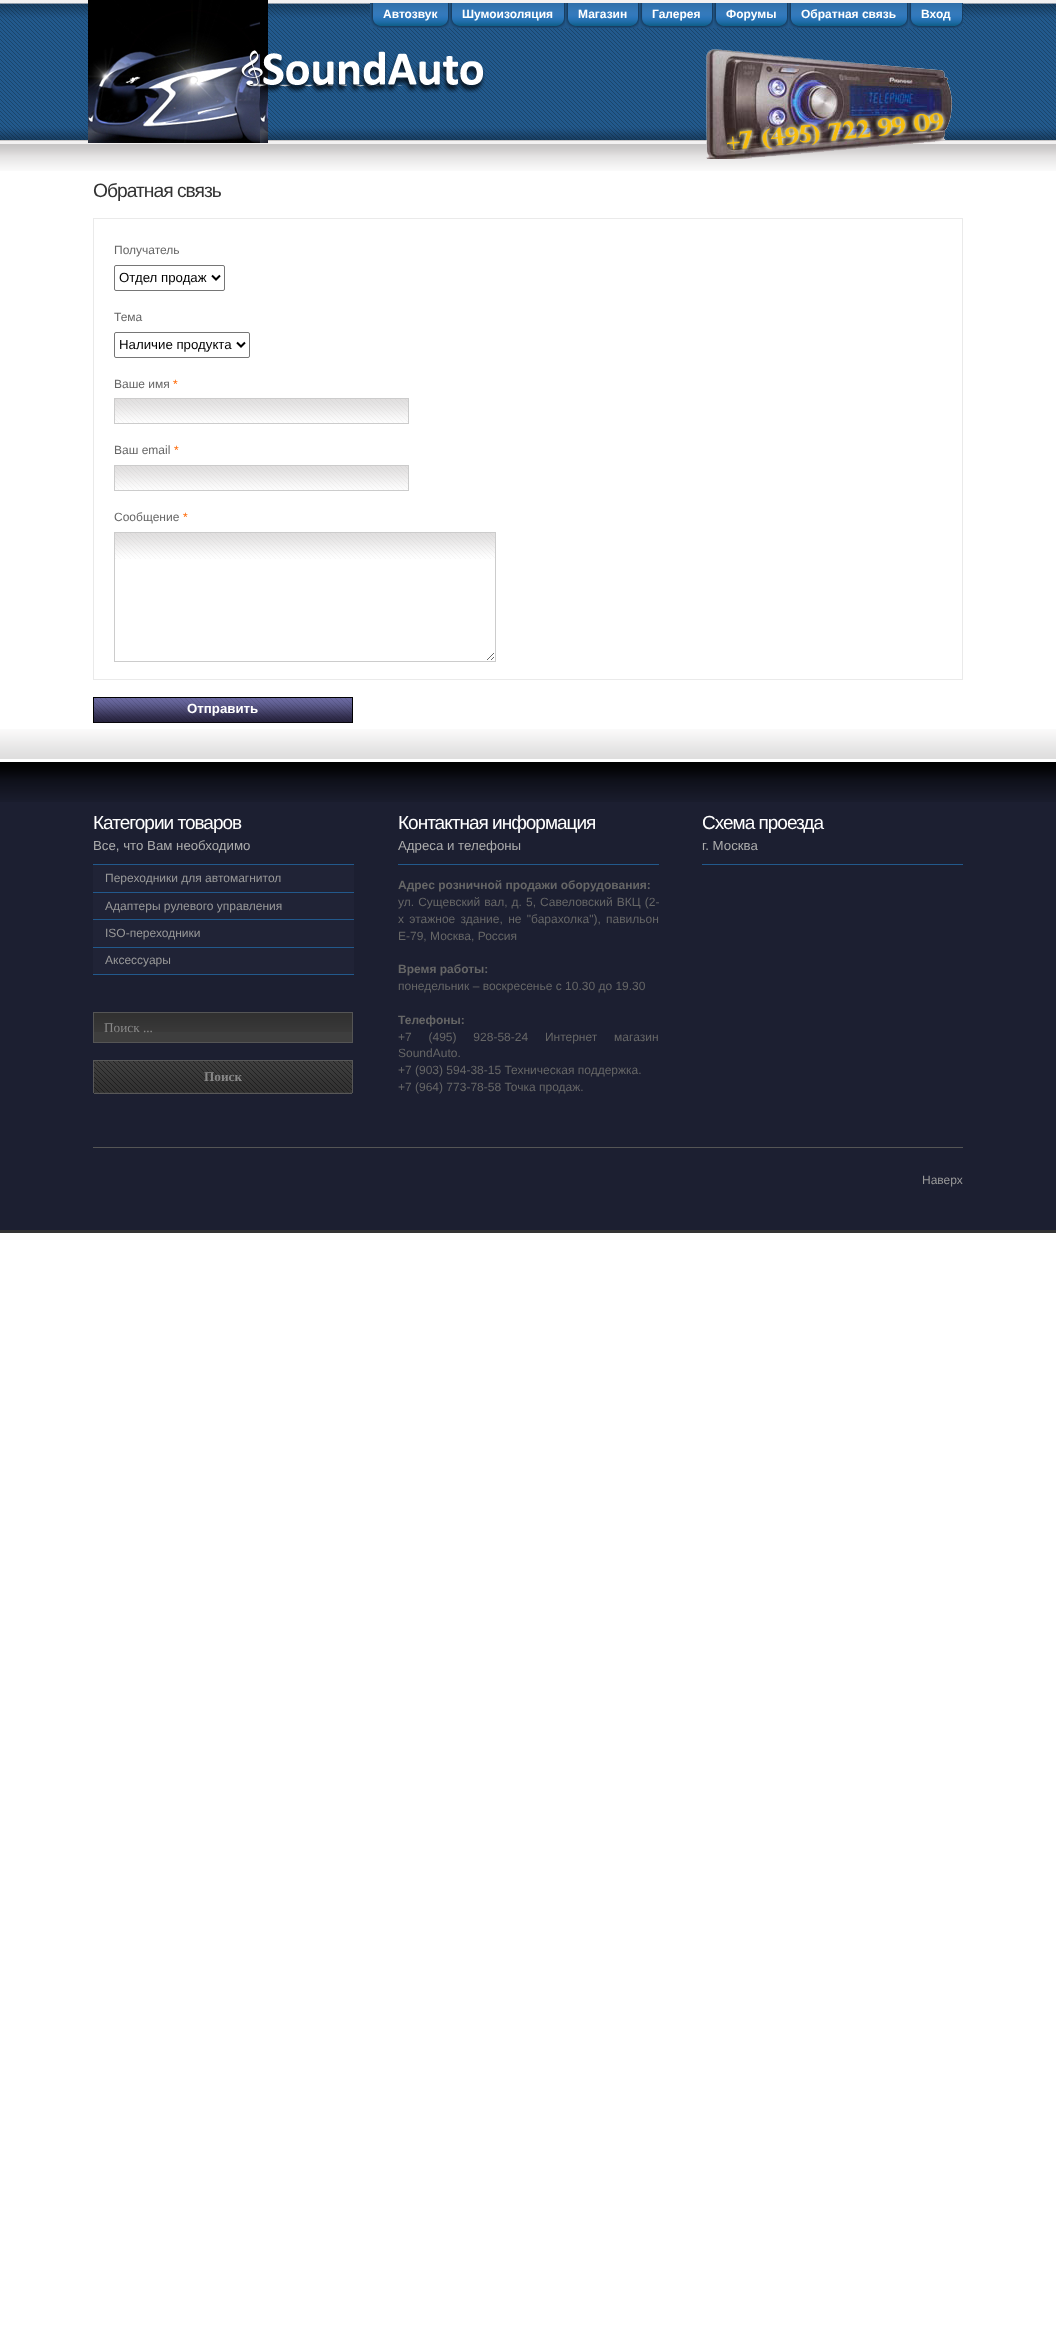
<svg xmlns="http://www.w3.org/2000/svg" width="1056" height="2327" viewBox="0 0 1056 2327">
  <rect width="100%" height="100%" fill="rgb(255,255,255)"/>
  <image x="0" y="3" width="1056" height="138" href="pic1.png"/>
  <rect x="0" y="0" width="1056" height="3" fill="rgb(243,241,241)"/>
  <rect x="0" y="141" width="1056" height="3" fill="rgb(243,241,241)"/>
  <image x="88" y="0" width="180" height="143" href="pic2.png"/>
  <image x="370" y="3" width="71" height="25" href="pic3.png"/>
  <image x="441" y="3" width="8" height="25" href="pic4.png"/>
  <text x="383" y="18" font-family="Liberation Sans" font-size="12" font-weight="bold" fill="rgb(255,255,255)">Автозвук</text>
  <image x="449" y="3" width="108" height="25" href="pic5.png"/>
  <image x="557" y="3" width="8" height="25" href="pic4.png"/>
  <text x="462" y="18" font-family="Liberation Sans" font-size="12" font-weight="bold" fill="rgb(255,255,255)">Шумоизоляция</text>
  <image x="565" y="3" width="66" height="25" href="pic6.png"/>
  <image x="631" y="3" width="8" height="25" href="pic4.png"/>
  <text x="578" y="18" font-family="Liberation Sans" font-size="12" font-weight="bold" fill="rgb(255,255,255)">Магазин</text>
  <image x="639" y="3" width="66" height="25" href="pic7.png"/>
  <image x="705" y="3" width="8" height="25" href="pic4.png"/>
  <text x="652" y="18" font-family="Liberation Sans" font-size="12" font-weight="bold" fill="rgb(255,255,255)">Галерея</text>
  <image x="713" y="3" width="67" height="25" href="pic8.png"/>
  <image x="780" y="3" width="8" height="25" href="pic4.png"/>
  <text x="726" y="18" font-family="Liberation Sans" font-size="12" font-weight="bold" fill="rgb(255,255,255)">Форумы</text>
  <image x="788" y="3" width="112" height="25" href="pic9.png"/>
  <image x="900" y="3" width="8" height="25" href="pic4.png"/>
  <text x="801" y="18" font-family="Liberation Sans" font-size="12" font-weight="bold" fill="rgb(255,255,255)">Обратная связь</text>
  <image x="908" y="3" width="47" height="25" href="pic10.png"/>
  <image x="955" y="3" width="8" height="25" href="pic4.png"/>
  <text x="921" y="18" font-family="Liberation Sans" font-size="12" font-weight="bold" fill="rgb(255,255,255)">Вход</text>
  <image x="241" y="50" width="244" height="43" href="pic11.png"/>
  <image x="0" y="144" width="1056" height="27" href="pic13.png"/>
  <image x="706" y="49" width="246" height="110" href="pic12.png"/>
  <text x="93" y="197" font-family="Liberation Sans" font-size="19.25" letter-spacing="-1" fill="rgb(51,51,51)">Обратная связь</text>
  <rect x="93.5" y="218.5" width="869" height="461" fill="none" stroke="rgb(234,234,234)"/>
  <text x="114" y="254" font-family="Liberation Sans" font-size="12" fill="rgb(102,102,102)">Получатель</text>
  <rect x="114.5" y="265.5" width="110" height="25" rx="1.5" fill="none" stroke="rgb(118,118,118)"/>
  <path d="M212 275.5L216 279.5L220 275.5" fill="none" stroke="rgb(0,0,0)" stroke-width="2"/>
  <text x="119" y="282" font-family="Liberation Sans" font-size="13.25" fill="rgb(0,0,0)">Отдел продаж</text>
  <text x="114" y="321" font-family="Liberation Sans" font-size="12" fill="rgb(102,102,102)">Тема</text>
  <rect x="114.5" y="332.5" width="135" height="25" rx="1.5" fill="none" stroke="rgb(118,118,118)"/>
  <path d="M237 342.5L241 346.5L245 342.5" fill="none" stroke="rgb(0,0,0)" stroke-width="2"/>
  <text x="119" y="349" font-family="Liberation Sans" font-size="13.25" fill="rgb(0,0,0)">Наличие продукта</text>
  <text x="114" y="388" font-family="Liberation Sans" font-size="12" fill="rgb(102,102,102)">Ваше имя</text>
  <text x="173" y="388" font-family="Liberation Sans" font-size="12" fill="rgb(255,102,0)">*</text>
  <image x="115" y="399" width="293" height="24" href="pic14.png"/>
  <rect x="114.5" y="398.5" width="294" height="25" fill="none" stroke="rgb(204,204,204)"/>
  <text x="114" y="454" font-family="Liberation Sans" font-size="12" fill="rgb(102,102,102)">Ваш email</text>
  <text x="174" y="454" font-family="Liberation Sans" font-size="12" fill="rgb(255,102,0)">*</text>
  <image x="115" y="466" width="293" height="24" href="pic14.png"/>
  <rect x="114.5" y="465.5" width="294" height="25" fill="none" stroke="rgb(204,204,204)"/>
  <text x="114" y="521" font-family="Liberation Sans" font-size="12" fill="rgb(102,102,102)">Cообщение</text>
  <text x="183" y="521" font-family="Liberation Sans" font-size="12" fill="rgb(255,102,0)">*</text>
  <image x="115" y="533" width="380" height="127" href="pic15.png"/>
  <rect x="114.5" y="532.5" width="381" height="129" fill="none" stroke="rgb(204,204,204)"/>
  <image x="93" y="697" width="260" height="26" href="pic16.png"/>
  <text x="187" y="713" font-family="Liberation Sans" font-size="13.25" font-weight="bold" fill="rgb(255,255,255)">Отправить</text>
  <image x="0" y="729" width="1056" height="30" href="pic17.png"/>
  <rect x="0" y="802" width="1056" height="428" fill="rgb(28,31,49)"/>
  <rect x="0" y="1230" width="1056" height="3" fill="rgb(51,51,51)"/>
  <image x="0" y="762" width="1056" height="40" href="pic18.png"/>
  <text x="93" y="829" font-family="Liberation Sans" font-size="19" letter-spacing="-1" fill="rgb(255,255,255)">Категории товаров</text>
  <rect x="93" y="864" width="261" height="1" fill="rgb(34,89,140)"/>
  <text x="93" y="850" font-family="Liberation Sans" font-size="13.25" fill="rgb(173,173,173)">Все, что Вам необходимо</text>
  <rect x="93" y="865" width="261" height="109" fill="rgb(32,35,54)"/>
  <rect x="93" y="892" width="261" height="1" fill="rgb(34,89,140)"/>
  <text x="105" y="882" font-family="Liberation Sans" font-size="12" fill="rgb(153,153,153)">Переходники для автомагнитол</text>
  <rect x="93" y="919" width="261" height="1" fill="rgb(34,89,140)"/>
  <text x="105" y="910" font-family="Liberation Sans" font-size="12" fill="rgb(153,153,153)">Адаптеры рулевого управления</text>
  <rect x="93" y="947" width="261" height="1" fill="rgb(34,89,140)"/>
  <text x="105" y="937" font-family="Liberation Sans" font-size="12" fill="rgb(153,153,153)">ISO-переходники</text>
  <rect x="93" y="974" width="261" height="1" fill="rgb(34,89,140)"/>
  <text x="105" y="964" font-family="Liberation Sans" font-size="12" fill="rgb(153,153,153)">Аксессуары</text>
  <rect x="94" y="1032" width="258" height="10" fill="rgb(62,62,62)"/>
  <image x="94" y="1013" width="258" height="19" href="pic19.png"/>
  <rect x="93.5" y="1012.5" width="259" height="30" fill="none" stroke="rgb(85,85,85)"/>
  <text x="104" y="1032" font-family="Liberation Serif" font-size="13.25" fill="rgb(136,136,136)">Поиск ...</text>
  <image x="93" y="1060" width="260" height="34" href="pic20.png"/>
  <text x="204" y="1081" font-family="Liberation Serif" font-size="13.25" font-weight="bold" fill="rgb(136,136,136)">Поиск</text>
  <text x="398" y="829" font-family="Liberation Sans" font-size="19" letter-spacing="-1" fill="rgb(255,255,255)">Контактная информация</text>
  <rect x="398" y="864" width="261" height="1" fill="rgb(34,89,140)"/>
  <text x="398" y="850" font-family="Liberation Sans" font-size="13.25" fill="rgb(173,173,173)">Адреса и телефоны</text>
  <text x="398" y="889" font-family="Liberation Sans" font-size="12" font-weight="bold" fill="rgb(102,102,102)">Адрес розничной продажи оборудования:</text>
  <g font-family="Liberation Sans" font-size="12" fill="rgb(102,102,102)">
    <text>
      <tspan x="398" y="906" word-spacing="0.75">ул. Сущевский вал, д. 5, Савеловский ВКЦ (2-</tspan>
      <tspan x="398" y="923" word-spacing="2">х этажное здание, не "барахолка"), павильон</tspan>
      <tspan x="398" y="940">E-79, Москва, Россия</tspan>
    </text>
  </g>
  <text x="398" y="973" font-family="Liberation Sans" font-size="12" font-weight="bold" fill="rgb(102,102,102)">Время работы:</text>
  <text x="398" y="990" font-family="Liberation Sans" font-size="12" fill="rgb(102,102,102)">понедельник – воскресенье с 10.30 до 19.30</text>
  <text x="398" y="1024" font-family="Liberation Sans" font-size="12" font-weight="bold" fill="rgb(102,102,102)">Телефоны:</text>
  <g font-family="Liberation Sans" font-size="12" fill="rgb(102,102,102)">
    <text>
      <tspan x="398" y="1041" word-spacing="13.5">+7 (495) 928-58-24 Интернет магазин</tspan>
      <tspan x="398" y="1057">SoundAuto.</tspan>
      <tspan x="398" y="1074">+7 (903) 594-38-15 Техническая поддержка.</tspan>
      <tspan x="398" y="1091">+7 (964) 773-78-58 Точка продаж.</tspan>
    </text>
  </g>
  <text x="702" y="829" font-family="Liberation Sans" font-size="19" letter-spacing="-1" fill="rgb(255,255,255)">Схема проезда</text>
  <rect x="702" y="864" width="261" height="1" fill="rgb(34,89,140)"/>
  <text x="702" y="850" font-family="Liberation Sans" font-size="13.25" fill="rgb(173,173,173)">г. Москва</text>
  <rect x="93" y="1147" width="870" height="1" fill="rgb(85,85,85)"/>
  <text x="922" y="1184" font-family="Liberation Sans" font-size="12" fill="rgb(153,153,153)">Наверх</text>
</svg>
